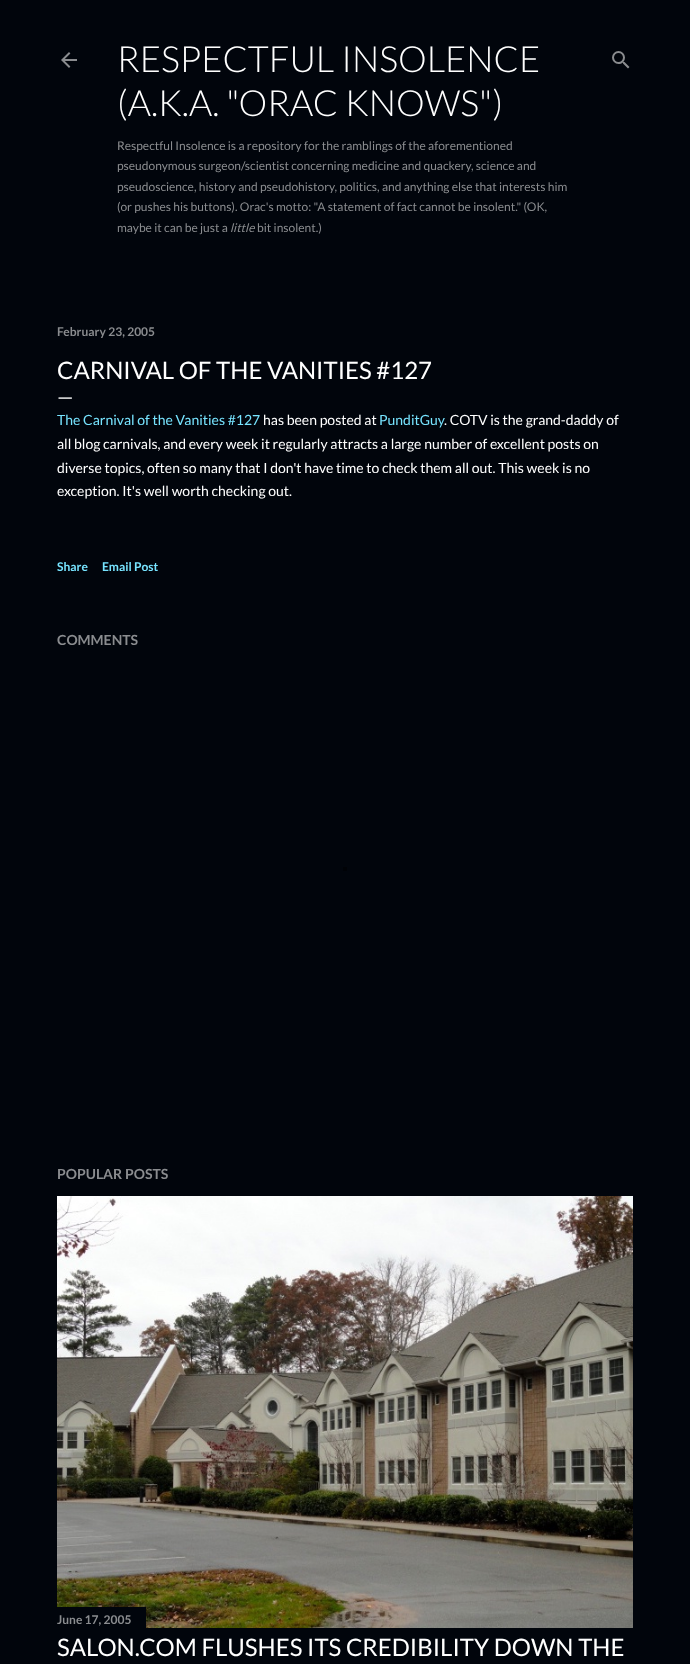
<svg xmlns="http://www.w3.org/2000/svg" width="690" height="1664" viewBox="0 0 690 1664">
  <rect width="100%" height="100%" fill="rgb(1,5,12)"/>
  <image x="61" y="52" width="16" height="16" href="pic1.png"/>
  <g font-family="Lato" font-size="36" font-weight="300" fill="rgb(255,255,255)">
    <text>
      <tspan x="117" y="72">RESPECTFUL INSOLENCE</tspan>
      <tspan x="117" y="116">(A.K.A. "ORAC KNOWS")</tspan>
    </text>
  </g>
  <g font-family="Lato" font-size="12" fill="rgb(138,140,143)">
    <text>
      <tspan x="117" y="150">Respectful Insolence is a repository for the ramblings of the aforementioned</tspan>
      <tspan x="117" y="170">pseudonymous surgeon/scientist concerning medicine and quackery, science and</tspan>
      <tspan x="117" y="191">pseudoscience, history and pseudohistory, politics, and anything else that interests him</tspan>
      <tspan x="117" y="211">(or pushes his buttons). Orac's motto: "A statement of fact cannot be insolent." (OK,</tspan>
      <tspan x="117" y="232">maybe it can be just a</tspan>
    </text>
  </g>
  <text x="230" y="232" font-family="Lato" font-size="12" font-style="italic" fill="rgb(138,140,143)">little</text>
  <text x="257" y="232" font-family="Lato" font-size="12" fill="rgb(138,140,143)">bit insolent.)</text>
  <image x="612" y="51" width="18" height="18" href="pic2.png"/>
  <text x="57" y="336" font-family="Lato" font-size="12" font-weight="bold" fill="rgb(138,140,143)">February 23, 2005</text>
  <text x="57" y="379" font-family="Lato" font-size="24" fill="rgb(255,255,255)">CARNIVAL OF THE VANITIES #127</text>
  <text x="57" y="404" font-family="Lato" font-size="20" fill="rgb(255,255,255)">—</text>
  <text x="57" y="425" font-family="Lato" font-size="14" fill="rgb(119,228,255)">The Carnival of the Vanities #127</text>
  <text x="263" y="425" font-family="Lato" font-size="14" fill="rgb(255,255,255)">has been posted at</text>
  <text x="379" y="425" font-family="Lato" font-size="14" fill="rgb(119,228,255)">PunditGuy</text>
  <g font-family="Lato" font-size="14" fill="rgb(255,255,255)">
    <text x="444" y="425">. COTV is the grand-daddy of</text>
    <text>
      <tspan x="57" y="449">all blog carnivals, and every week it regularly attracts a large number of excellent posts on</tspan>
      <tspan x="57" y="473">diverse topics, often so many that I don't have time to check them all out. This week is no</tspan>
      <tspan x="57" y="496">exception. It's well worth checking out.</tspan>
    </text>
  </g>
  <g font-family="Lato" font-size="12" font-weight="bold" fill="rgb(119,228,255)">
    <text x="57" y="571">Share</text>
    <text x="102" y="571">Email Post</text>
  </g>
  <g font-family="Lato" font-size="14" font-weight="bold" fill="rgb(138,140,143)">
    <text x="57" y="645">COMMENTS</text>
    <text x="57" y="1179">POPULAR POSTS</text>
  </g>
  <image x="57" y="1196" width="576" height="432" href="pic3.png"/>
  <rect x="57" y="1607" width="89" height="21" fill="rgb(1,5,12)"/>
  <text x="57" y="1624" font-family="Lato" font-size="12" font-weight="bold" fill="rgb(138,140,143)">June 17, 2005</text>
  <text x="57" y="1656" font-family="Lato" font-size="24" fill="rgb(255,255,255)">SALON.COM FLUSHES ITS CREDIBILITY DOWN THE</text>
  <rect x="343" y="867" width="4" height="4" fill="rgb(0,2,6)"/>
</svg>
